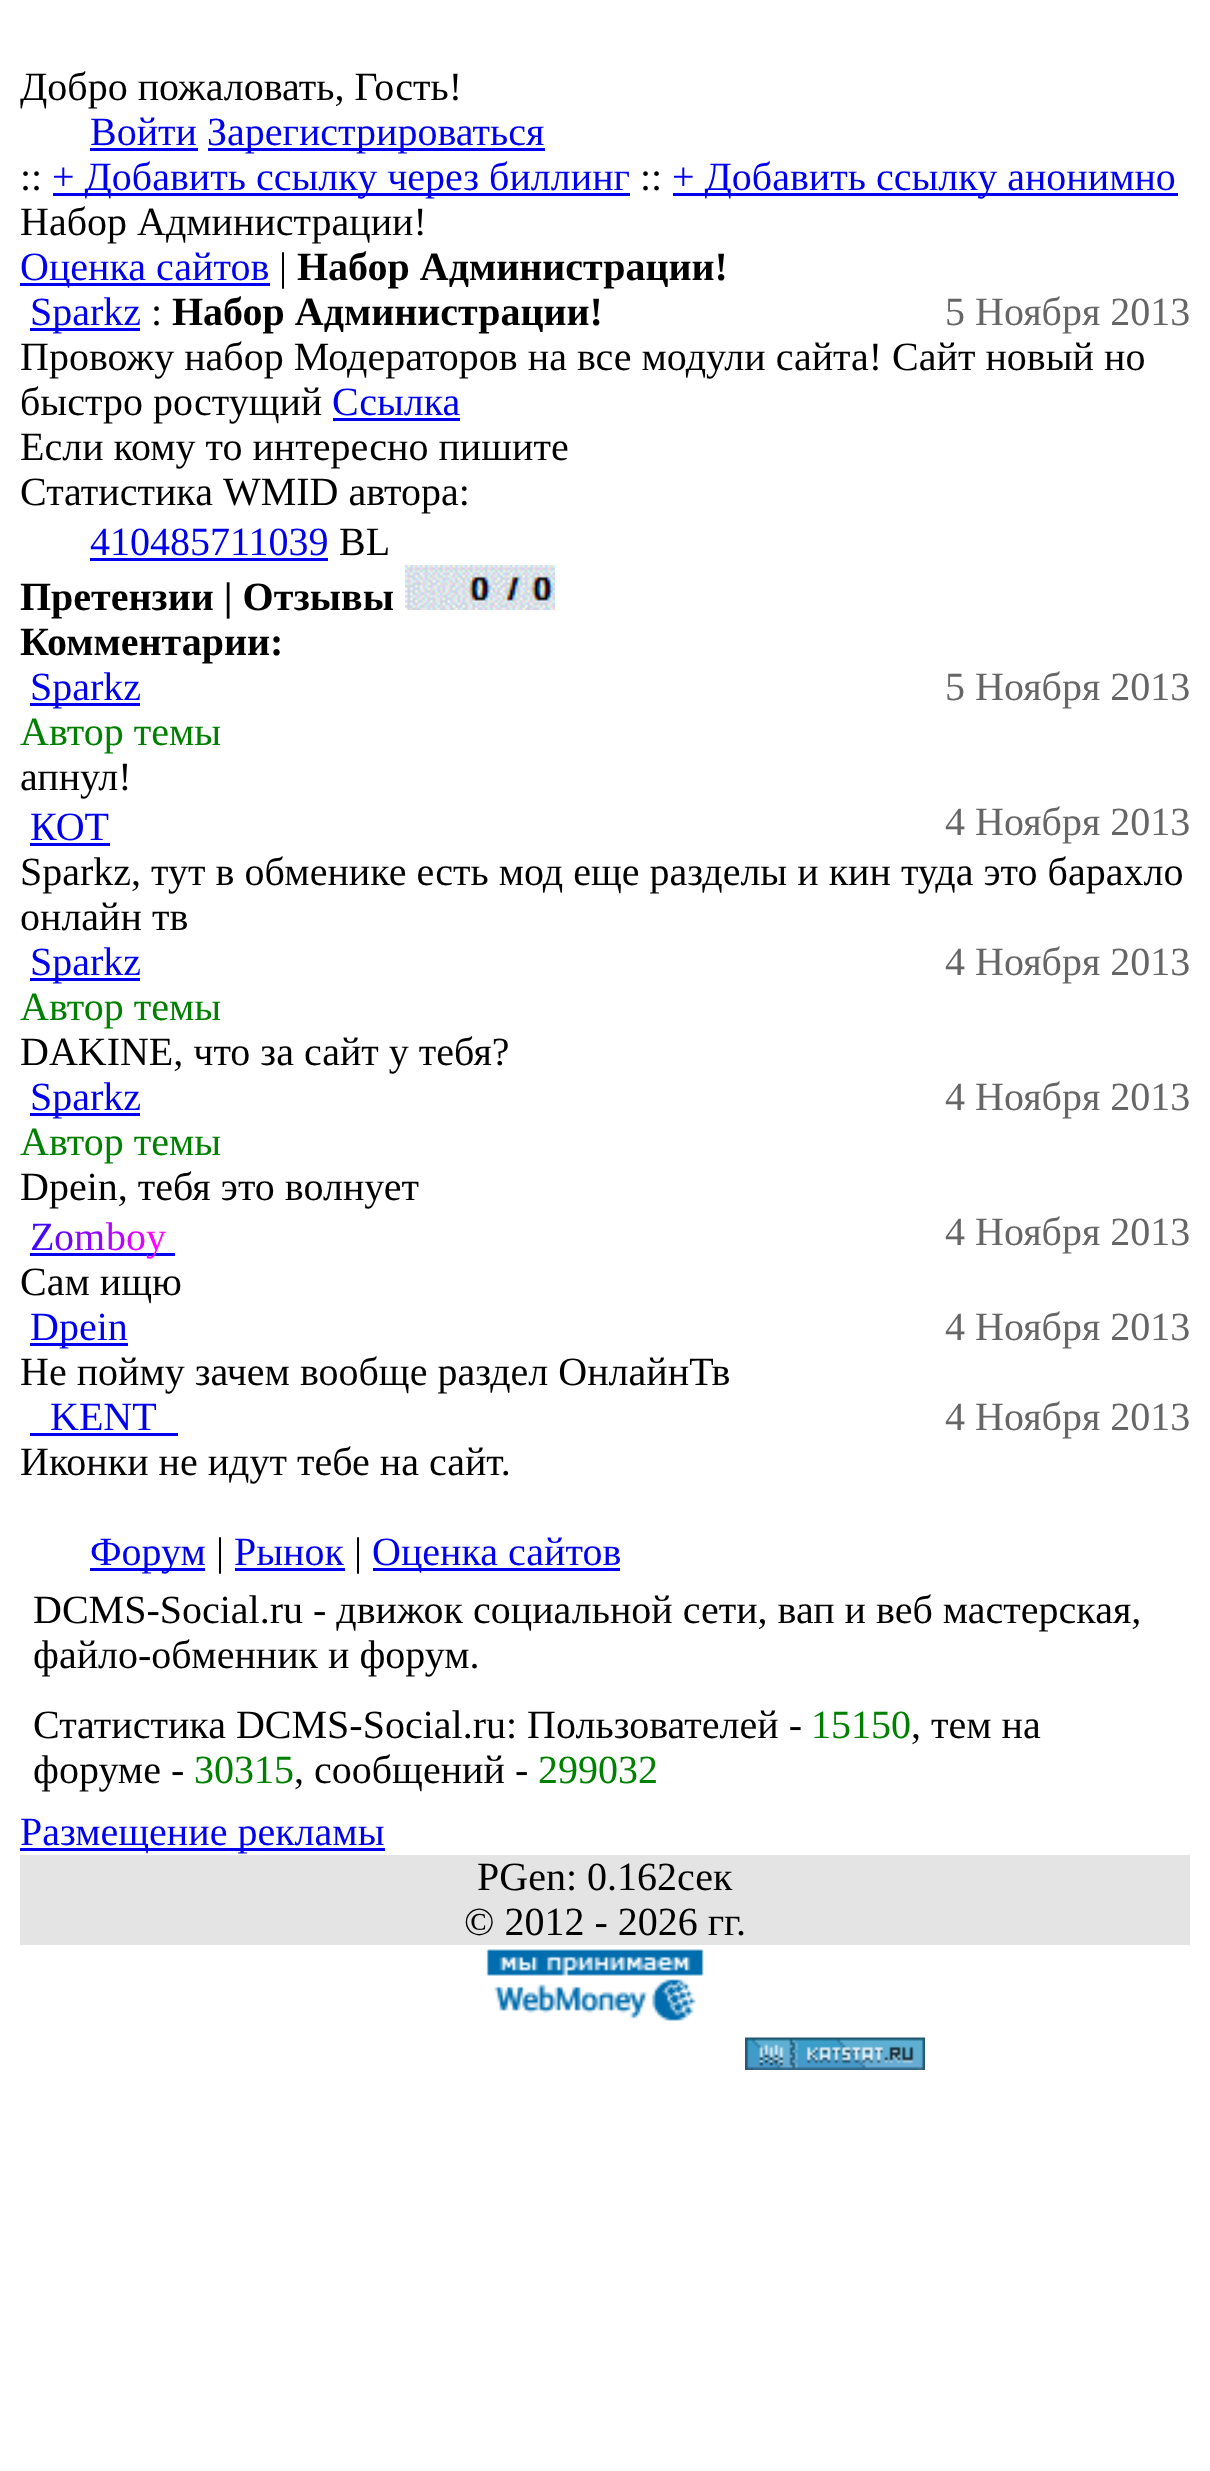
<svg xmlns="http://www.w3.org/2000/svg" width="1210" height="2471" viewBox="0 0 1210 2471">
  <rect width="100%" height="100%" fill="rgb(255,255,255)"/>
  <text x="20" y="100" font-family="Liberation Serif" font-size="40" fill="rgb(0,0,0)">Добро пожаловать, Гость!</text>
  <text x="90" y="145" font-family="Liberation Serif" font-size="40" fill="rgb(0,0,238)">Войти</text>
  <rect x="90" y="148" width="108" height="3" fill="rgb(0,0,238)"/>
  <rect x="208" y="148" width="337" height="3" fill="rgb(0,0,238)"/>
  <text x="207" y="145" font-family="Liberation Serif" font-size="40" fill="rgb(0,0,238)">Зарегистрироваться</text>
  <text x="20" y="190" font-family="Liberation Serif" font-size="40" fill="rgb(0,0,0)">::</text>
  <rect x="53" y="193" width="577" height="3" fill="rgb(0,0,238)"/>
  <text x="52" y="190" font-family="Liberation Serif" font-size="40" fill="rgb(0,0,238)">+ Добавить ссылку через биллинг</text>
  <text x="640" y="190" font-family="Liberation Serif" font-size="40" fill="rgb(0,0,0)">::</text>
  <rect x="673" y="193" width="505" height="3" fill="rgb(0,0,238)"/>
  <text x="672" y="190" font-family="Liberation Serif" font-size="40" fill="rgb(0,0,238)">+ Добавить ссылку анонимно</text>
  <text x="20" y="235" font-family="Liberation Serif" font-size="40" fill="rgb(0,0,0)">Набор Администрации!</text>
  <rect x="20" y="283" width="250" height="3" fill="rgb(0,0,238)"/>
  <text x="20" y="280" font-family="Liberation Serif" font-size="40" fill="rgb(0,0,238)">Оценка сайтов</text>
  <text x="279" y="280" font-family="Liberation Serif" font-size="40" fill="rgb(0,0,0)">|</text>
  <text x="297" y="280" font-family="Liberation Serif" font-size="40" font-weight="bold" fill="rgb(0,0,0)">Набор Администрации!</text>
  <rect x="30" y="328" width="110" height="3" fill="rgb(0,0,238)"/>
  <text x="30" y="325" font-family="Liberation Serif" font-size="40" fill="rgb(0,0,238)">Sparkz</text>
  <text x="151" y="325" font-family="Liberation Serif" font-size="40" fill="rgb(0,0,0)">:</text>
  <text x="172" y="325" font-family="Liberation Serif" font-size="40" font-weight="bold" fill="rgb(0,0,0)">Набор Администрации!</text>
  <text x="945" y="325" font-family="Liberation Serif" font-size="40" fill="rgb(102,102,102)">5 Ноября 2013</text>
  <g font-family="Liberation Serif" font-size="40" fill="rgb(0,0,0)">
    <text>
      <tspan x="20" y="370">Провожу набор Модераторов на все модули сайта! Сайт новый но</tspan>
      <tspan x="20" y="415">быстро ростущий</tspan>
    </text>
  </g>
  <text x="332" y="415" font-family="Liberation Serif" font-size="40" fill="rgb(0,0,238)">Ссылка</text>
  <rect x="333" y="418" width="127" height="3" fill="rgb(0,0,238)"/>
  <g font-family="Liberation Serif" font-size="40" fill="rgb(0,0,0)">
    <text>
      <tspan x="20" y="460">Если кому то интересно пишите</tspan>
      <tspan x="20" y="505">Статистика WMID автора:</tspan>
    </text>
  </g>
  <text x="90" y="555" font-family="Liberation Serif" font-size="40" fill="rgb(0,0,238)">410485711039</text>
  <rect x="90" y="558" width="238" height="3" fill="rgb(0,0,238)"/>
  <text x="339" y="555" font-family="Liberation Serif" font-size="40" fill="rgb(0,0,0)">BL</text>
  <text x="20" y="610" font-family="Liberation Serif" font-size="40" font-weight="bold" fill="rgb(0,0,0)">Претензии | Отзывы</text>
  <image x="405" y="565" width="150" height="45" href="pic1.png"/>
  <text x="20" y="655" font-family="Liberation Serif" font-size="40" font-weight="bold" fill="rgb(0,0,0)">Комментарии:</text>
  <rect x="30" y="703" width="110" height="3" fill="rgb(0,0,238)"/>
  <text x="30" y="700" font-family="Liberation Serif" font-size="40" fill="rgb(0,0,238)">Sparkz</text>
  <text x="945" y="700" font-family="Liberation Serif" font-size="40" fill="rgb(102,102,102)">5 Ноября 2013</text>
  <text x="20" y="745" font-family="Liberation Serif" font-size="40" fill="rgb(0,128,0)">Автор темы</text>
  <text x="20" y="790" font-family="Liberation Serif" font-size="40" fill="rgb(0,0,0)">апнул!</text>
  <text x="30" y="840" font-family="Liberation Serif" font-size="40" fill="rgb(0,0,238)">КОТ</text>
  <rect x="30" y="843" width="80" height="3" fill="rgb(0,0,238)"/>
  <text x="945" y="835" font-family="Liberation Serif" font-size="40" fill="rgb(102,102,102)">4 Ноября 2013</text>
  <g font-family="Liberation Serif" font-size="40" fill="rgb(0,0,0)">
    <text>
      <tspan x="20" y="885">Sparkz, тут в обменике есть мод еще разделы и кин туда это барахло</tspan>
      <tspan x="20" y="930">онлайн тв</tspan>
    </text>
  </g>
  <rect x="30" y="978" width="110" height="3" fill="rgb(0,0,238)"/>
  <text x="30" y="975" font-family="Liberation Serif" font-size="40" fill="rgb(0,0,238)">Sparkz</text>
  <text x="945" y="975" font-family="Liberation Serif" font-size="40" fill="rgb(102,102,102)">4 Ноября 2013</text>
  <text x="20" y="1020" font-family="Liberation Serif" font-size="40" fill="rgb(0,128,0)">Автор темы</text>
  <text x="20" y="1065" font-family="Liberation Serif" font-size="40" fill="rgb(0,0,0)">DAKINE, что за сайт у тебя?</text>
  <rect x="30" y="1113" width="110" height="3" fill="rgb(0,0,238)"/>
  <text x="30" y="1110" font-family="Liberation Serif" font-size="40" fill="rgb(0,0,238)">Sparkz</text>
  <text x="945" y="1110" font-family="Liberation Serif" font-size="40" fill="rgb(102,102,102)">4 Ноября 2013</text>
  <text x="20" y="1155" font-family="Liberation Serif" font-size="40" fill="rgb(0,128,0)">Автор темы</text>
  <text x="20" y="1200" font-family="Liberation Serif" font-size="40" fill="rgb(0,0,0)">Dpein, тебя это волнует</text>
  <text x="30" y="1250" font-family="Liberation Serif" font-size="40" fill="rgb(68,8,255)">Z</text>
  <text x="54" y="1250" font-family="Liberation Serif" font-size="40" fill="rgb(106,7,255)">o</text>
  <text x="74" y="1250" font-family="Liberation Serif" font-size="40" fill="rgb(144,6,255)">m</text>
  <text x="106" y="1250" font-family="Liberation Serif" font-size="40" fill="rgb(182,5,255)">b</text>
  <text x="126" y="1250" font-family="Liberation Serif" font-size="40" fill="rgb(220,4,255)">o</text>
  <rect x="30" y="1253" width="135" height="3" fill="rgb(0,0,238)"/>
  <text x="146" y="1250" font-family="Liberation Serif" font-size="40" fill="rgb(255,3,255)">y</text>
  <rect x="165" y="1253" width="10" height="3" fill="rgb(0,0,238)"/>
  <text x="945" y="1245" font-family="Liberation Serif" font-size="40" fill="rgb(102,102,102)">4 Ноября 2013</text>
  <text x="20" y="1295" font-family="Liberation Serif" font-size="40" fill="rgb(0,0,0)">Сам ищю</text>
  <rect x="30" y="1343" width="98" height="3" fill="rgb(0,0,238)"/>
  <text x="30" y="1340" font-family="Liberation Serif" font-size="40" fill="rgb(0,0,238)">Dpein</text>
  <text x="945" y="1340" font-family="Liberation Serif" font-size="40" fill="rgb(102,102,102)">4 Ноября 2013</text>
  <text x="20" y="1385" font-family="Liberation Serif" font-size="40" fill="rgb(0,0,0)">Не пойму зачем вообще раздел ОнлайнТв</text>
  <text x="50" y="1430" font-family="Liberation Serif" font-size="40" fill="rgb(0,0,238)">KENT</text>
  <rect x="30" y="1433" width="148" height="3" fill="rgb(0,0,238)"/>
  <text x="945" y="1430" font-family="Liberation Serif" font-size="40" fill="rgb(102,102,102)">4 Ноября 2013</text>
  <text x="20" y="1475" font-family="Liberation Serif" font-size="40" fill="rgb(0,0,0)">Иконки не идут тебе на сайт.</text>
  <rect x="90" y="1568" width="115" height="3" fill="rgb(0,0,238)"/>
  <text x="90" y="1565" font-family="Liberation Serif" font-size="40" fill="rgb(0,0,238)">Форум</text>
  <text x="216" y="1565" font-family="Liberation Serif" font-size="40" fill="rgb(0,0,0)">|</text>
  <text x="234" y="1565" font-family="Liberation Serif" font-size="40" fill="rgb(0,0,238)">Рынок</text>
  <rect x="235" y="1568" width="110" height="3" fill="rgb(0,0,238)"/>
  <text x="354" y="1565" font-family="Liberation Serif" font-size="40" fill="rgb(0,0,0)">|</text>
  <rect x="373" y="1568" width="247" height="3" fill="rgb(0,0,238)"/>
  <text x="372" y="1565" font-family="Liberation Serif" font-size="40" fill="rgb(0,0,238)">Оценка сайтов</text>
  <g font-family="Liberation Serif" font-size="40" fill="rgb(0,0,0)">
    <text>
      <tspan x="33" y="1623">DCMS-Social.ru - движок социальной сети, вап и веб мастерская,</tspan>
      <tspan x="33" y="1668">файло-обменник и форум.</tspan>
      <tspan x="33" y="1738">Статистика DCMS-Social.ru: Пользователей -</tspan>
    </text>
  </g>
  <text x="811" y="1738" font-family="Liberation Serif" font-size="40" fill="rgb(0,128,0)">15150</text>
  <g font-family="Liberation Serif" font-size="40" fill="rgb(0,0,0)">
    <text x="911" y="1738">, тем на</text>
    <text x="33" y="1783">форуме -</text>
  </g>
  <text x="194" y="1783" font-family="Liberation Serif" font-size="40" fill="rgb(0,128,0)">30315</text>
  <text x="294" y="1783" font-family="Liberation Serif" font-size="40" fill="rgb(0,0,0)">, сообщений -</text>
  <text x="538" y="1783" font-family="Liberation Serif" font-size="40" fill="rgb(0,128,0)">299032</text>
  <rect x="20" y="1848" width="365" height="3" fill="rgb(0,0,238)"/>
  <text x="20" y="1845" font-family="Liberation Serif" font-size="40" fill="rgb(0,0,238)">Размещение рекламы</text>
  <rect x="20" y="1855" width="1170" height="90" fill="rgb(228,228,228)"/>
  <g font-family="Liberation Serif" font-size="40" fill="rgb(0,0,0)">
    <text x="477" y="1890">PGen: 0.162сек</text>
    <text x="464" y="1935">© 2012 - 2026 гг.</text>
  </g>
  <image x="486" y="1949" width="218" height="72" href="pic2.png"/>
  <image x="745" y="2037" width="180" height="33" href="pic3.png"/>
</svg>
